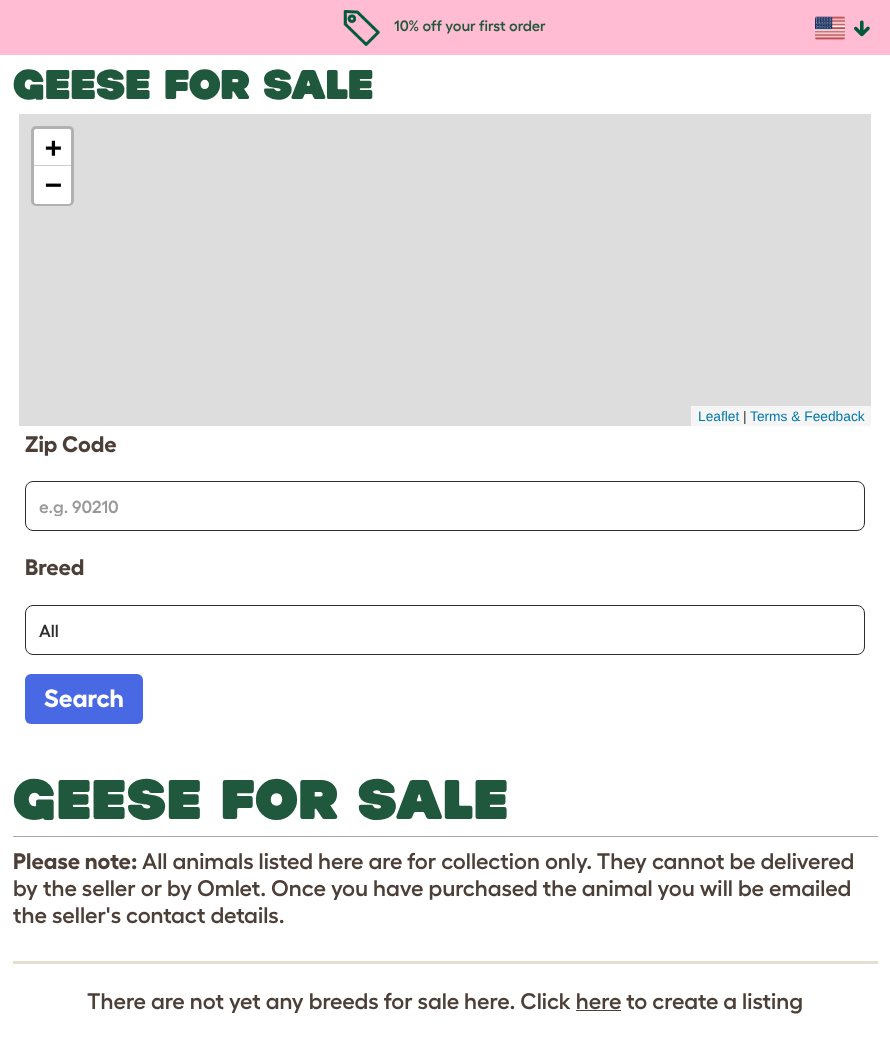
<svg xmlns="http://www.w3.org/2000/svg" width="890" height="1058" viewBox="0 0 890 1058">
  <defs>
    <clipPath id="clip1"><rect x="39" y="496" width="812" height="20"/></clipPath>
  </defs>
  <rect width="100%" height="100%" fill="rgb(255,255,255)"/>
  <rect x="0" y="0" width="890" height="55" fill="rgb(255,188,211)"/>
  <image x="343" y="10" width="37" height="37" href="pic1.png"/>
  <text x="394" y="31" font-family="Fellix" font-size="15" font-weight="600" fill="rgb(31,88,60)">10% off your first order</text>
  <image x="815" y="16" width="30" height="25" href="pic2.png"/>
  <image x="854" y="20" width="16" height="17" href="pic3.png"/>
  <text x="13" y="99" font-family="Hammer" font-size="42.75" font-weight="bold" letter-spacing="-0.6" fill="rgb(31,88,60)">GEESE FOR SALE</text>
  <rect x="19" y="114" width="852" height="312" fill="rgb(221,221,221)"/>
  <rect x="32.5" y="127.5" width="40" height="77" rx="3.5" fill="none" stroke="rgb(177,177,177)" stroke-width="3"/>
  <path d="M36.5 129H68.5C70 129 71 130 71 131.5V166H34V131.5C34 130 35 129 36.5 129Z" fill="rgb(255,255,255)"/>
  <rect x="34" y="165" width="37" height="1" fill="rgb(204,204,204)"/>
  <text x="45" y="157" font-family="DejaVu Sans Mono" font-size="28" font-weight="bold" fill="rgb(0,0,0)">+</text>
  <path d="M34 166H71V201.5C71 203 70 204 68.5 204H36.5C35 204 34 203 34 201.5Z" fill="rgb(255,255,255)"/>
  <text x="45" y="194" font-family="DejaVu Sans Mono" font-size="28" font-weight="bold" fill="rgb(0,0,0)">−</text>
  <rect x="691" y="406" width="180" height="20" fill="rgb(245,245,245)"/>
  <text x="698" y="421" font-family="Liberation Sans" font-size="13.75" fill="rgb(0,120,168)">Leaflet</text>
  <text x="743" y="421" font-family="Liberation Sans" font-size="13.75" fill="rgb(51,51,51)">|</text>
  <text x="750" y="421" font-family="Liberation Sans" font-size="13.75" fill="rgb(0,120,168)">Terms &amp; Feedback</text>
  <text x="25" y="452" font-family="Fellix" font-size="22.5" font-weight="bold" fill="rgb(76,63,55)">Zip Code</text>
  <rect x="25.5" y="481.5" width="839" height="49" rx="7.5" fill="none" stroke="rgb(45,45,45)"/>
  <g clip-path="url(#clip1)">
    <text x="39" y="513" font-family="Fellix" font-size="17.5" font-weight="600" fill="rgb(153,153,153)">e.g. 90210</text>
  </g>
  <text x="25" y="575" font-family="Fellix" font-size="22.5" font-weight="bold" fill="rgb(76,63,55)">Breed</text>
  <rect x="25.5" y="605.5" width="839" height="49" rx="7.5" fill="none" stroke="rgb(45,45,45)"/>
  <text x="39" y="637" font-family="Fellix" font-size="17.5" font-weight="600" fill="rgb(45,45,45)">All</text>
  <rect x="25" y="674" width="118" height="50" rx="6" fill="rgb(73,105,228)"/>
  <text x="44" y="707" font-family="Fellix" font-size="25" font-weight="bold" fill="rgb(255,255,255)">Search</text>
  <rect x="13" y="836" width="865" height="1" fill="rgb(170,170,170)"/>
  <text x="13" y="819" font-family="Hammer" font-size="57.5" font-weight="bold" fill="rgb(31,88,60)">GEESE FOR SALE</text>
  <text x="13" y="869" font-family="Fellix" font-size="22.5" font-weight="bold" fill="rgb(76,63,55)">Please note:</text>
  <g font-family="Fellix" font-size="22.5" font-weight="600" fill="rgb(76,63,55)">
    <text x="142" y="869">All animals listed here are for collection only. They cannot be delivered</text>
    <text>
      <tspan x="13" y="896">by the seller or by Omlet. Once you have purchased the animal you will be emailed</tspan>
      <tspan x="13" y="923">the seller's contact details.</tspan>
    </text>
  </g>
  <rect x="13" y="961" width="865" height="3" fill="rgb(226,224,207)"/>
  <text x="87" y="1009" font-family="Fellix" font-size="22.5" font-weight="600" fill="rgb(76,63,55)">There are not yet any breeds for sale here. Click here to create a listing</text>
  <rect x="576" y="1010" width="45" height="1" fill="rgb(76,63,55)"/>
</svg>
